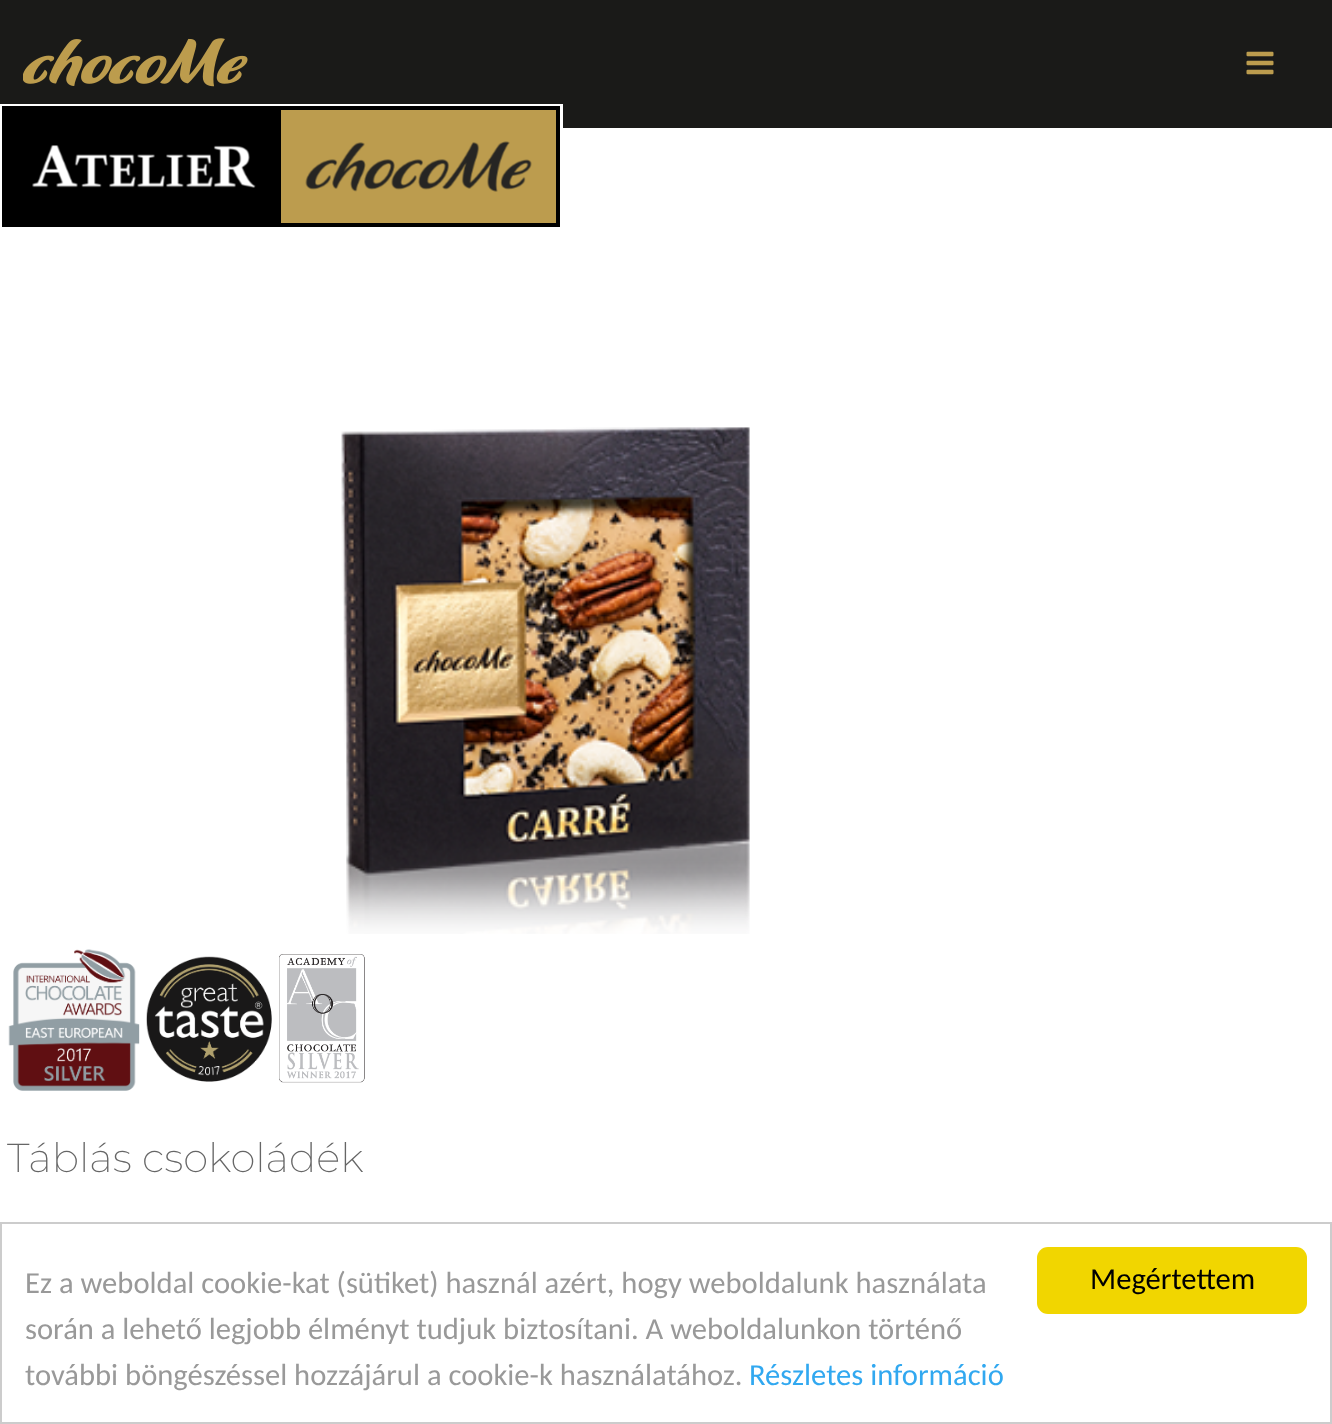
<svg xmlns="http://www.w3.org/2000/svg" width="1332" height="1424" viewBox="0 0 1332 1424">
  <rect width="100%" height="100%" fill="rgb(255,255,255)"/>
  <rect x="0" y="0" width="1332" height="128" fill="rgb(26,26,24)"/>
  <image x="23" y="38" width="225" height="49" href="pic1.png"/>
  <image x="1246" y="51" width="28" height="24" href="pic2.png"/>
  <rect x="0" y="104" width="563" height="24" fill="rgb(255,255,255)"/>
  <rect x="4.5" y="108.5" width="553" height="116" fill="none" stroke="rgb(0,0,0)" stroke-width="5"/>
  <rect x="7" y="111" width="274" height="111" fill="rgb(0,0,0)"/>
  <image x="32" y="145" width="224" height="43" href="pic3.png"/>
  <rect x="281" y="110" width="275" height="113" fill="rgb(188,156,78)"/>
  <image x="305" y="141" width="227" height="51" href="pic4.png"/>
  <image x="341" y="427" width="409" height="507" href="pic5.png"/>
  <image x="8" y="949" width="132" height="142" href="pic6.png"/>
  <image x="146" y="956" width="126" height="126" href="pic7.png"/>
  <image x="279" y="954" width="86" height="129" href="pic8.png"/>
  <text x="7" y="1172" font-family="Montserrat" font-size="40.5" font-weight="200" fill="rgb(102,102,102)">Táblás csokoládék</text>
  <rect x="1" y="1223" width="1330" height="200" fill="none" stroke="rgb(204,204,204)" stroke-width="2"/>
  <g font-family="Carlito" font-size="30.6" fill="rgb(153,153,153)">
    <text>
      <tspan x="25" y="1293">Ez a weboldal cookie-kat (sütiket) használ azért, hogy weboldalunk használata</tspan>
      <tspan x="25" y="1339">során a lehető legjobb élményt tudjuk biztosítani. A weboldalunkon történő</tspan>
      <tspan x="25" y="1385">további böngészéssel hozzájárul a cookie-k használatához.</tspan>
    </text>
  </g>
  <text x="749" y="1385" font-family="Carlito" font-size="30.6" fill="rgb(49,168,240)">Részletes információ</text>
  <rect x="1037" y="1247" width="270" height="67" rx="11" fill="rgb(241,214,0)"/>
  <text x="1090" y="1289" font-family="Carlito" font-size="30.6" fill="rgb(0,0,0)">Megértettem</text>
</svg>
